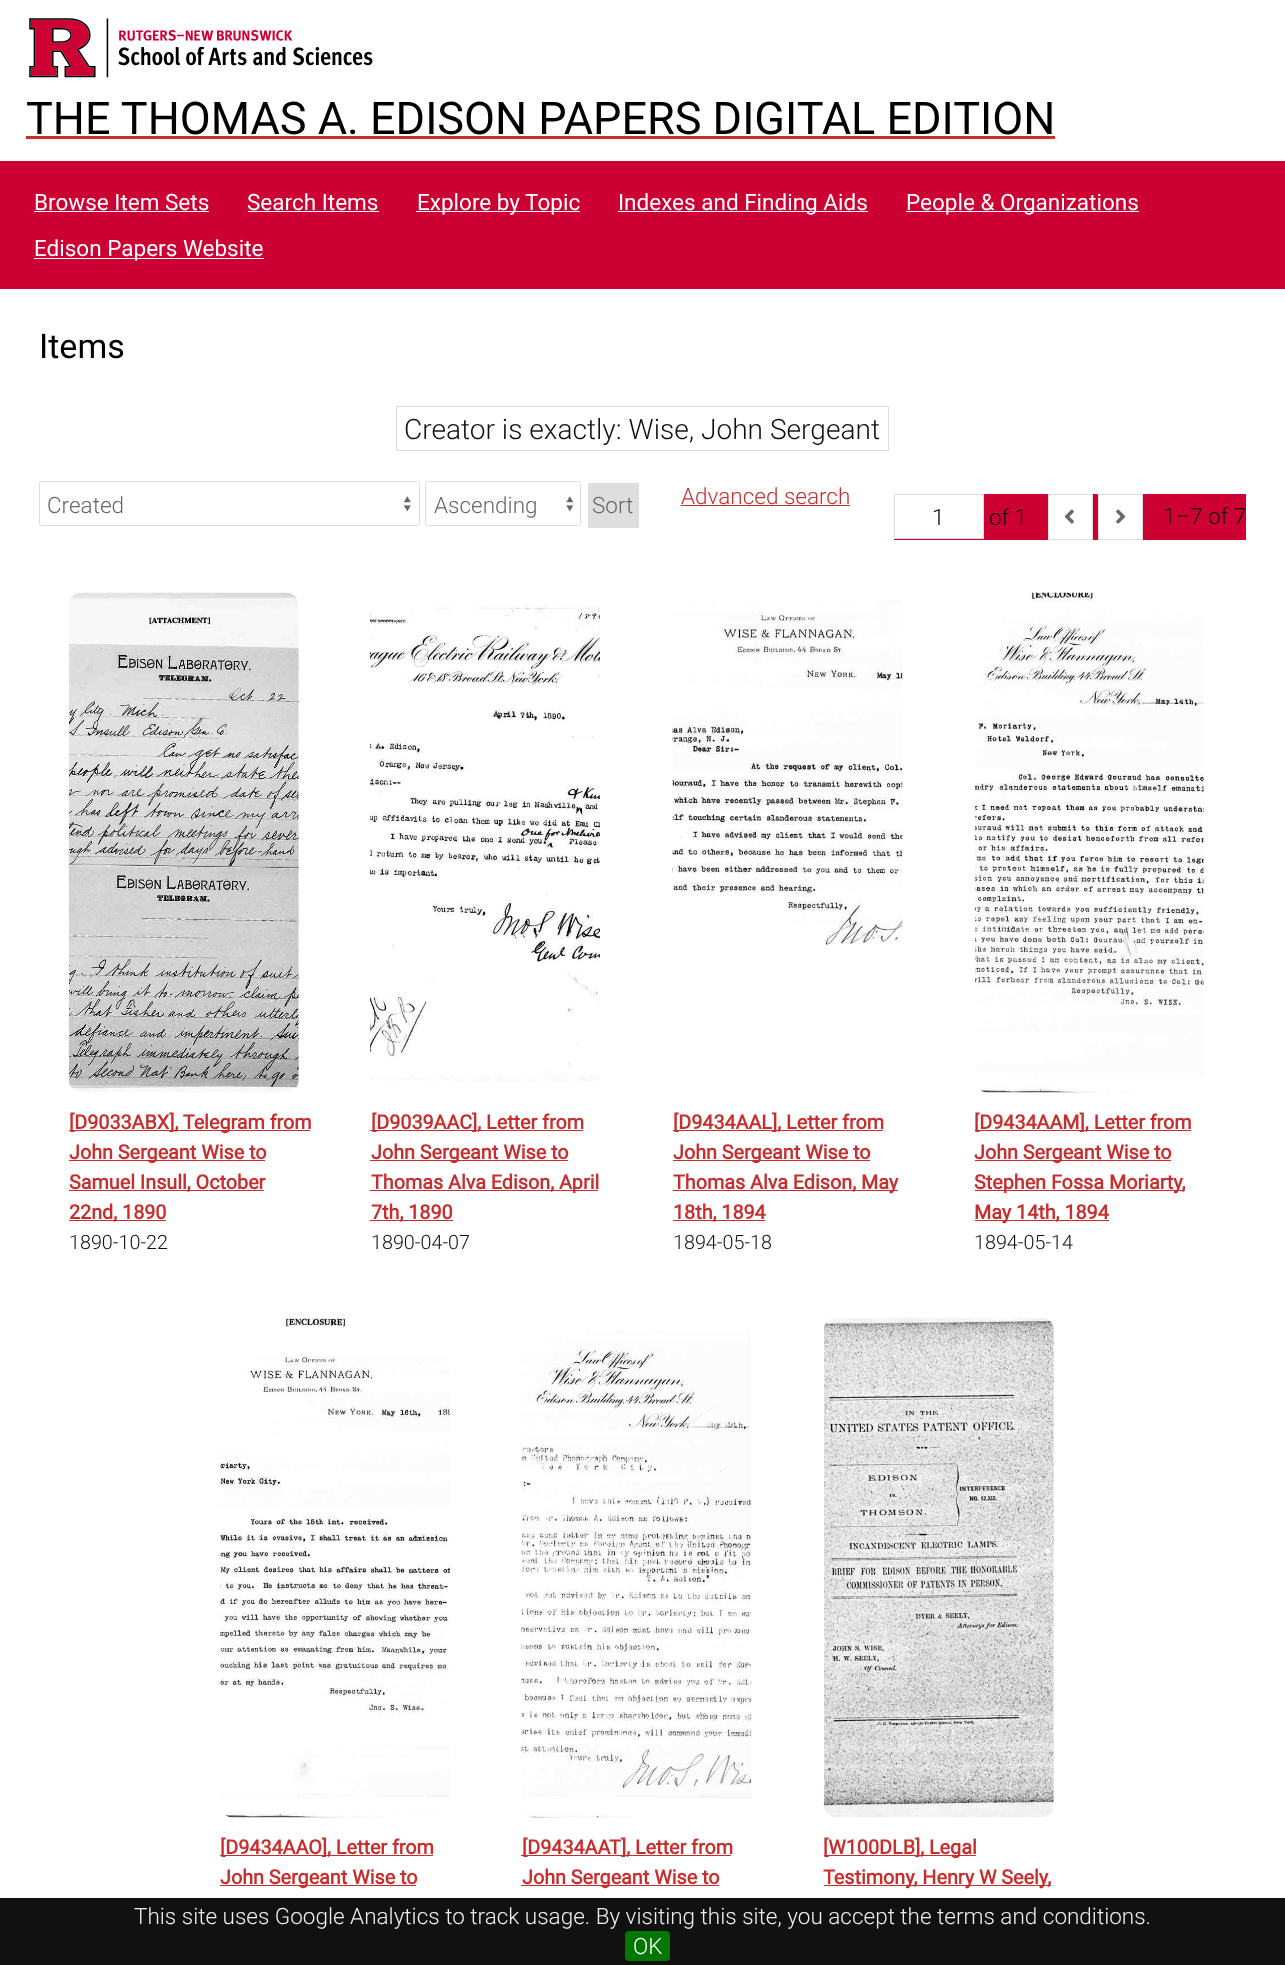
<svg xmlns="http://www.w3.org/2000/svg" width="1285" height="1965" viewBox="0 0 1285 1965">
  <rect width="100%" height="100%" fill="rgb(255,255,255)"/>
  <image x="29" y="18" width="344" height="60" href="pic1.png"/>
  <text x="26" y="134" font-family="Roboto" font-size="45" fill="rgb(0,0,0)">THE THOMAS A. EDISON PAPERS DIGITAL EDITION</text>
  <rect x="26" y="136" width="1029" height="3" fill="rgb(199,46,46)"/>
  <rect x="0" y="161" width="1285" height="128" fill="rgb(204,0,51)"/>
  <text x="34" y="210" font-family="Roboto" font-size="22.5" fill="rgb(255,255,255)">Browse Item Sets</text>
  <rect x="34" y="211" width="175" height="1" fill="rgb(255,255,255)"/>
  <text x="247" y="210" font-family="Roboto" font-size="22.5" fill="rgb(255,255,255)">Search Items</text>
  <rect x="248" y="211" width="131" height="1" fill="rgb(255,255,255)"/>
  <rect x="416" y="211" width="164" height="1" fill="rgb(255,255,255)"/>
  <text x="417" y="210" font-family="Roboto" font-size="22.5" fill="rgb(255,255,255)">Explore by Topic</text>
  <rect x="618" y="211" width="250" height="1" fill="rgb(255,255,255)"/>
  <text x="618" y="210" font-family="Roboto" font-size="22.5" fill="rgb(255,255,255)">Indexes and Finding Aids</text>
  <rect x="906" y="211" width="233" height="1" fill="rgb(255,255,255)"/>
  <text x="906" y="210" font-family="Roboto" font-size="22.5" fill="rgb(255,255,255)">People &amp; Organizations</text>
  <rect x="34" y="258" width="230" height="1" fill="rgb(255,255,255)"/>
  <text x="34" y="256" font-family="Roboto" font-size="22.5" fill="rgb(255,255,255)">Edison Papers Website</text>
  <text x="39" y="358" font-family="Roboto" font-size="34" fill="rgb(0,0,0)">Items</text>
  <rect x="396.5" y="406.5" width="492" height="44" fill="none" stroke="rgb(222,222,222)"/>
  <text x="404" y="439" font-family="Roboto" font-size="28.1" font-weight="300" fill="rgb(17,17,17)">Creator is exactly: Wise, John Sergeant</text>
  <image x="404" y="496" width="7" height="15" href="pic2.png"/>
  <rect x="39.5" y="481.5" width="380" height="44" rx="2" fill="none" stroke="rgb(222,222,222)"/>
  <text x="47" y="513" font-family="Roboto" font-size="22.5" font-weight="300" fill="rgb(103,103,103)">Created</text>
  <image x="566" y="496" width="7" height="15" href="pic3.png"/>
  <rect x="425.5" y="481.5" width="155" height="44" rx="2" fill="none" stroke="rgb(222,222,222)"/>
  <text x="434" y="513" font-family="Roboto" font-size="22.5" font-weight="300" fill="rgb(103,103,103)">Ascending</text>
  <rect x="588" y="483" width="51" height="45" fill="rgb(222,222,222)"/>
  <text x="592" y="513" font-family="Roboto" font-size="22.5" font-weight="300" fill="rgb(103,103,103)">Sort</text>
  <text x="681" y="504" font-family="Roboto" font-size="22.5" font-weight="300" fill="rgb(199,46,46)">Advanced search</text>
  <rect x="681" y="505" width="169" height="1" fill="rgb(199,46,46)"/>
  <rect x="894" y="494" width="352" height="46" fill="rgb(204,0,51)"/>
  <rect x="894.5" y="494.5" width="89" height="44" fill="rgb(255,255,255)" stroke="rgb(222,222,222)"/>
  <text x="932" y="525" font-family="Roboto" font-size="22.5" font-weight="300" fill="rgb(0,0,0)">1</text>
  <text x="989" y="525" font-family="Roboto" font-size="22.5" font-weight="300" fill="rgb(17,17,17)">of 1</text>
  <rect x="1048.5" y="494.5" width="44" height="45" fill="rgb(255,255,255)" stroke="rgb(222,222,222)"/>
  <image x="1064" y="509" width="10" height="15" href="pic4.png"/>
  <rect x="1098.5" y="494.5" width="44" height="45" fill="rgb(255,255,255)" stroke="rgb(222,222,222)"/>
  <image x="1116" y="509" width="10" height="15" href="pic5.png"/>
  <text x="1163" y="524" font-family="Roboto" font-size="22.5" font-weight="300" fill="rgb(17,17,17)">1–7 of 7</text>
  <image x="68" y="592" width="231" height="500" href="pic6.png"/>
  <rect x="69" y="1130" width="241" height="1" fill="rgb(199,46,46)"/>
  <text x="69" y="1129" font-family="Roboto" font-size="19.75" font-weight="bold" fill="rgb(199,46,46)">[D9033ABX], Telegram from</text>
  <rect x="69" y="1160" width="196" height="1" fill="rgb(199,46,46)"/>
  <text x="69" y="1159" font-family="Roboto" font-size="19.75" font-weight="bold" fill="rgb(199,46,46)">John Sergeant Wise to</text>
  <rect x="69" y="1190" width="195" height="1" fill="rgb(199,46,46)"/>
  <text x="69" y="1189" font-family="Roboto" font-size="19.75" font-weight="bold" fill="rgb(199,46,46)">Samuel Insull, October</text>
  <rect x="69" y="1220" width="97" height="1" fill="rgb(199,46,46)"/>
  <text x="69" y="1219" font-family="Roboto" font-size="19.75" font-weight="bold" fill="rgb(199,46,46)">22nd, 1890</text>
  <text x="69" y="1249" font-family="Roboto" font-size="19.75" font-weight="300" fill="rgb(17,17,17)">1890-10-22</text>
  <image x="370" y="606" width="230" height="476" href="pic7.png"/>
  <rect x="370" y="1130" width="213" height="1" fill="rgb(199,46,46)"/>
  <text x="371" y="1129" font-family="Roboto" font-size="19.75" font-weight="bold" fill="rgb(199,46,46)">[D9039AAC], Letter from</text>
  <rect x="370" y="1160" width="198" height="1" fill="rgb(199,46,46)"/>
  <text x="371" y="1159" font-family="Roboto" font-size="19.75" font-weight="bold" fill="rgb(199,46,46)">John Sergeant Wise to</text>
  <rect x="370" y="1190" width="228" height="1" fill="rgb(199,46,46)"/>
  <text x="371" y="1189" font-family="Roboto" font-size="19.75" font-weight="bold" fill="rgb(199,46,46)">Thomas Alva Edison, April</text>
  <rect x="370" y="1220" width="83" height="1" fill="rgb(199,46,46)"/>
  <text x="371" y="1219" font-family="Roboto" font-size="19.75" font-weight="bold" fill="rgb(199,46,46)">7th, 1890</text>
  <text x="371" y="1249" font-family="Roboto" font-size="19.75" font-weight="300" fill="rgb(17,17,17)">1890-04-07</text>
  <image x="672" y="600" width="231" height="349" href="pic8.png"/>
  <rect x="673" y="1130" width="210" height="1" fill="rgb(199,46,46)"/>
  <text x="673" y="1129" font-family="Roboto" font-size="19.75" font-weight="bold" fill="rgb(199,46,46)">[D9434AAL], Letter from</text>
  <rect x="673" y="1160" width="197" height="1" fill="rgb(199,46,46)"/>
  <text x="673" y="1159" font-family="Roboto" font-size="19.75" font-weight="bold" fill="rgb(199,46,46)">John Sergeant Wise to</text>
  <rect x="673" y="1190" width="225" height="1" fill="rgb(199,46,46)"/>
  <text x="673" y="1189" font-family="Roboto" font-size="19.75" font-weight="bold" fill="rgb(199,46,46)">Thomas Alva Edison, May</text>
  <rect x="673" y="1220" width="92" height="1" fill="rgb(199,46,46)"/>
  <text x="673" y="1219" font-family="Roboto" font-size="19.75" font-weight="bold" fill="rgb(199,46,46)">18th, 1894</text>
  <text x="673" y="1249" font-family="Roboto" font-size="19.75" font-weight="300" fill="rgb(17,17,17)">1894-05-18</text>
  <image x="975" y="592" width="229" height="501" href="pic9.png"/>
  <rect x="975" y="1130" width="216" height="1" fill="rgb(199,46,46)"/>
  <text x="974" y="1129" font-family="Roboto" font-size="19.75" font-weight="bold" fill="rgb(199,46,46)">[D9434AAM], Letter from</text>
  <rect x="975" y="1160" width="196" height="1" fill="rgb(199,46,46)"/>
  <text x="974" y="1159" font-family="Roboto" font-size="19.75" font-weight="bold" fill="rgb(199,46,46)">John Sergeant Wise to</text>
  <rect x="975" y="1190" width="210" height="1" fill="rgb(199,46,46)"/>
  <text x="974" y="1189" font-family="Roboto" font-size="19.75" font-weight="bold" fill="rgb(199,46,46)">Stephen Fossa Moriarty,</text>
  <rect x="975" y="1220" width="134" height="1" fill="rgb(199,46,46)"/>
  <text x="974" y="1219" font-family="Roboto" font-size="19.75" font-weight="bold" fill="rgb(199,46,46)">May 14th, 1894</text>
  <text x="974" y="1249" font-family="Roboto" font-size="19.75" font-weight="300" fill="rgb(17,17,17)">1894-05-14</text>
  <image x="220" y="1317" width="230" height="501" href="pic10.png"/>
  <rect x="220" y="1855" width="213" height="1" fill="rgb(199,46,46)"/>
  <text x="220" y="1854" font-family="Roboto" font-size="19.75" font-weight="bold" fill="rgb(199,46,46)">[D9434AAO], Letter from</text>
  <rect x="220" y="1885" width="196" height="1" fill="rgb(199,46,46)"/>
  <text x="220" y="1884" font-family="Roboto" font-size="19.75" font-weight="bold" fill="rgb(199,46,46)">John Sergeant Wise to</text>
  <image x="521" y="1331" width="231" height="487" href="pic11.png"/>
  <rect x="521" y="1855" width="210" height="1" fill="rgb(199,46,46)"/>
  <text x="522" y="1854" font-family="Roboto" font-size="19.75" font-weight="bold" fill="rgb(199,46,46)">[D9434AAT], Letter from</text>
  <rect x="521" y="1885" width="198" height="1" fill="rgb(199,46,46)"/>
  <text x="522" y="1884" font-family="Roboto" font-size="19.75" font-weight="bold" fill="rgb(199,46,46)">John Sergeant Wise to</text>
  <image x="823" y="1317" width="231" height="501" href="pic12.png"/>
  <rect x="824" y="1855" width="152" height="1" fill="rgb(199,46,46)"/>
  <text x="823" y="1854" font-family="Roboto" font-size="19.75" font-weight="bold" fill="rgb(199,46,46)">[W100DLB], Legal</text>
  <rect x="824" y="1885" width="227" height="1" fill="rgb(199,46,46)"/>
  <text x="823" y="1884" font-family="Roboto" font-size="19.75" font-weight="bold" fill="rgb(199,46,46)">Testimony, Henry W Seely,</text>
  <rect x="0" y="1898" width="1285" height="67" fill="rgb(17,17,17)"/>
  <text x="134" y="1924" font-family="Roboto" font-size="22.5" font-weight="300" fill="rgb(238,238,238)">This site uses Google Analytics to track usage. By visiting this site, you accept the terms and conditions.</text>
  <rect x="625" y="1931" width="45" height="30" rx="4" fill="rgb(0,119,0)"/>
  <text x="633" y="1954" font-family="Roboto" font-size="22.5" font-weight="300" fill="rgb(255,255,255)">OK</text>
</svg>
